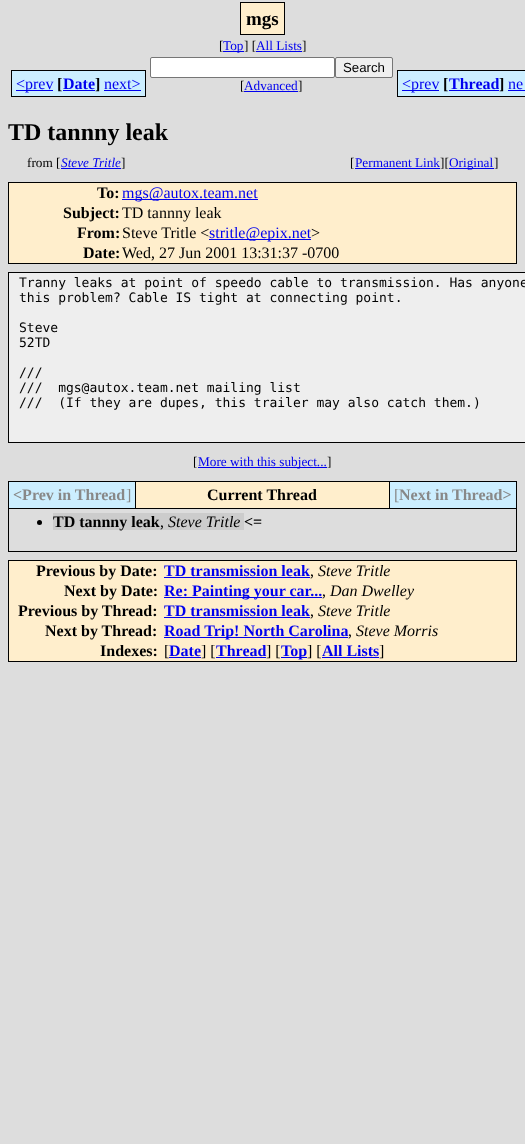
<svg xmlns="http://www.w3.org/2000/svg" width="525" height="1144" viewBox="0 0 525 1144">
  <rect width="100%" height="100%" fill="rgb(221,221,221)"/>
  <rect x="240.5" y="2.5" width="44" height="32" fill="rgb(255,238,204)" stroke="rgb(0,0,0)"/>
  <text x="246" y="25" font-family="Liberation Serif" font-size="19" font-weight="bold" fill="rgb(0,0,0)">mgs</text>
  <text x="219" y="50" font-family="Liberation Serif" font-size="13.25" fill="rgb(0,0,0)">[</text>
  <rect x="223" y="51" width="21" height="1" fill="rgb(0,0,238)"/>
  <text x="223" y="50" font-family="Liberation Serif" font-size="13.25" fill="rgb(0,0,238)">Top</text>
  <text x="244" y="50" font-family="Liberation Serif" font-size="13.25" fill="rgb(0,0,0)">] [</text>
  <text x="256" y="50" font-family="Liberation Serif" font-size="13.25" fill="rgb(0,0,238)">All Lists</text>
  <text x="302" y="50" font-family="Liberation Serif" font-size="13.25" fill="rgb(0,0,0)">]</text>
  <rect x="256" y="51" width="46" height="1" fill="rgb(0,0,238)"/>
  <rect x="12" y="71" width="41" height="25" fill="rgb(204,238,255)"/>
  <rect x="16" y="90" width="37" height="1" fill="rgb(0,0,238)"/>
  <rect x="53" y="70" width="10" height="27" fill="rgb(204,238,255)"/>
  <text x="16" y="89" font-family="Liberation Serif" font-size="16" fill="rgb(0,0,238)">&lt;prev</text>
  <rect x="11" y="70" width="42" height="1" fill="rgb(0,0,0)"/>
  <rect x="11" y="96" width="42" height="1" fill="rgb(0,0,0)"/>
  <rect x="11" y="70" width="1" height="27" fill="rgb(0,0,0)"/>
  <rect x="53" y="96" width="42" height="1" fill="rgb(0,0,0)"/>
  <text x="57" y="89" font-family="Liberation Serif" font-size="16" font-weight="bold" fill="rgb(0,0,0)">[</text>
  <rect x="63" y="71" width="32" height="25" fill="rgb(204,238,255)"/>
  <rect x="63" y="90" width="32" height="1" fill="rgb(0,0,238)"/>
  <text x="63" y="89" font-family="Liberation Serif" font-size="16" font-weight="bold" fill="rgb(0,0,238)">Date</text>
  <rect x="53" y="70" width="42" height="1" fill="rgb(0,0,0)"/>
  <rect x="95" y="70" width="9" height="27" fill="rgb(204,238,255)"/>
  <rect x="95" y="70" width="51" height="1" fill="rgb(0,0,0)"/>
  <text x="95" y="89" font-family="Liberation Serif" font-size="16" font-weight="bold" fill="rgb(0,0,0)">]</text>
  <rect x="95" y="96" width="9" height="1" fill="rgb(0,0,0)"/>
  <rect x="104" y="71" width="41" height="25" fill="rgb(204,238,255)"/>
  <text x="104" y="89" font-family="Liberation Serif" font-size="16" fill="rgb(0,0,238)">next&gt;</text>
  <rect x="145" y="70" width="1" height="27" fill="rgb(0,0,0)"/>
  <rect x="104" y="96" width="42" height="1" fill="rgb(0,0,0)"/>
  <rect x="104" y="90" width="37" height="1" fill="rgb(0,0,238)"/>
  <rect x="150.5" y="57.5" width="184" height="20" rx="1.5" fill="rgb(255,255,255)" stroke="rgb(118,118,118)"/>
  <rect x="335.5" y="57.5" width="57" height="20" rx="1.5" fill="rgb(239,239,239)" stroke="rgb(118,118,118)"/>
  <text x="343" y="72" font-family="Liberation Sans" font-size="13.25" fill="rgb(0,0,0)">Search</text>
  <text x="240" y="90" font-family="Liberation Serif" font-size="13.25" fill="rgb(0,0,0)">[</text>
  <rect x="244" y="91" width="54" height="1" fill="rgb(0,0,238)"/>
  <text x="244" y="90" font-family="Liberation Serif" font-size="13.25" fill="rgb(0,0,238)">Advanced</text>
  <text x="298" y="90" font-family="Liberation Serif" font-size="13.25" fill="rgb(0,0,0)">]</text>
  <rect x="398" y="71" width="41" height="25" fill="rgb(204,238,255)"/>
  <rect x="402" y="90" width="37" height="1" fill="rgb(0,0,238)"/>
  <rect x="439" y="70" width="10" height="27" fill="rgb(204,238,255)"/>
  <text x="402" y="89" font-family="Liberation Serif" font-size="16" fill="rgb(0,0,238)">&lt;prev</text>
  <rect x="397" y="70" width="42" height="1" fill="rgb(0,0,0)"/>
  <rect x="397" y="96" width="42" height="1" fill="rgb(0,0,0)"/>
  <rect x="397" y="70" width="1" height="27" fill="rgb(0,0,0)"/>
  <rect x="439" y="96" width="60" height="1" fill="rgb(0,0,0)"/>
  <text x="443" y="89" font-family="Liberation Serif" font-size="16" font-weight="bold" fill="rgb(0,0,0)">[</text>
  <rect x="449" y="71" width="50" height="25" fill="rgb(204,238,255)"/>
  <rect x="449" y="90" width="50" height="1" fill="rgb(0,0,238)"/>
  <text x="449" y="89" font-family="Liberation Serif" font-size="16" font-weight="bold" fill="rgb(0,0,238)">Thread</text>
  <rect x="439" y="70" width="60" height="1" fill="rgb(0,0,0)"/>
  <rect x="499" y="70" width="9" height="27" fill="rgb(204,238,255)"/>
  <rect x="499" y="70" width="26" height="1" fill="rgb(0,0,0)"/>
  <text x="499" y="89" font-family="Liberation Serif" font-size="16" font-weight="bold" fill="rgb(0,0,0)">]</text>
  <rect x="508" y="71" width="17" height="25" fill="rgb(204,238,255)"/>
  <text x="508" y="89" font-family="Liberation Serif" font-size="16" fill="rgb(0,0,238)">ne</text>
  <rect x="499" y="96" width="26" height="1" fill="rgb(0,0,0)"/>
  <rect x="508" y="90" width="17" height="1" fill="rgb(0,0,238)"/>
  <text x="8" y="140" font-family="Liberation Serif" font-size="24" font-weight="bold" fill="rgb(0,0,0)">TD tannny leak</text>
  <text x="27" y="167" font-family="Liberation Serif" font-size="13.25" fill="rgb(0,0,0)">from [</text>
  <rect x="61" y="168" width="60" height="1" fill="rgb(0,0,238)"/>
  <text x="61" y="167" font-family="Liberation Serif" font-size="13.25" font-style="italic" fill="rgb(0,0,238)">Steve Tritle</text>
  <g font-family="Liberation Serif" font-size="13.25" fill="rgb(0,0,0)">
    <text x="121" y="167">]</text>
    <text x="350" y="167">[</text>
  </g>
  <rect x="355" y="168" width="85" height="1" fill="rgb(0,0,238)"/>
  <text x="355" y="167" font-family="Liberation Serif" font-size="13.25" fill="rgb(0,0,238)">Permanent Link</text>
  <text x="440" y="167" font-family="Liberation Serif" font-size="13.25" fill="rgb(0,0,0)">][</text>
  <rect x="449" y="168" width="45" height="1" fill="rgb(0,0,238)"/>
  <text x="449" y="167" font-family="Liberation Serif" font-size="13.25" fill="rgb(0,0,238)">Original</text>
  <text x="494" y="167" font-family="Liberation Serif" font-size="13.25" fill="rgb(0,0,0)">]</text>
  <rect x="8.5" y="182.5" width="508" height="81" fill="rgb(255,238,204)" stroke="rgb(0,0,0)"/>
  <text x="97" y="198" font-family="Liberation Serif" font-size="16" font-weight="bold" fill="rgb(0,0,0)">To:</text>
  <rect x="122" y="199" width="136" height="1" fill="rgb(0,0,238)"/>
  <text x="122" y="198" font-family="Liberation Serif" font-size="16" fill="rgb(0,0,238)">mgs@autox.team.net</text>
  <text x="63" y="218" font-family="Liberation Serif" font-size="16" font-weight="bold" fill="rgb(0,0,0)">Subject:</text>
  <text x="122" y="218" font-family="Liberation Serif" font-size="16" fill="rgb(0,0,0)">TD tannny leak</text>
  <text x="77" y="238" font-family="Liberation Serif" font-size="16" font-weight="bold" fill="rgb(0,0,0)">From:</text>
  <text x="122" y="238" font-family="Liberation Serif" font-size="16" fill="rgb(0,0,0)">Steve Tritle &lt;</text>
  <rect x="209" y="239" width="102" height="1" fill="rgb(0,0,238)"/>
  <text x="209" y="238" font-family="Liberation Serif" font-size="16" fill="rgb(0,0,238)">stritle@epix.net</text>
  <text x="311" y="238" font-family="Liberation Serif" font-size="16" fill="rgb(0,0,0)">&gt;</text>
  <text x="83" y="258" font-family="Liberation Serif" font-size="16" font-weight="bold" fill="rgb(0,0,0)">Date:</text>
  <text x="122" y="258" font-family="Liberation Serif" font-size="16" fill="rgb(0,0,0)">Wed, 27 Jun 2001 13:31:37 -0700</text>
  <rect x="8.5" y="272.5" width="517" height="170" fill="rgb(238,238,238)" stroke="rgb(0,0,0)"/>
  <g font-family="DejaVu Sans Mono" font-size="13" fill="rgb(0,0,0)">
    <text>
      <tspan x="19" y="287">Tranny leaks at point of speedo cable to transmission. Has anyone</tspan>
      <tspan x="19" y="302">this problem? Cable IS tight at connecting point.</tspan>
    </text>
    <text>
      <tspan x="19" y="332">Steve</tspan>
      <tspan x="19" y="347">52TD</tspan>
    </text>
    <text xml:space="preserve"><tspan x="19" y="377">///</tspan><tspan x="19" y="392">///  mgs@autox.team.net mailing list</tspan><tspan x="19" y="407">///  (If they are dupes, this trailer may also catch them.)</tspan></text>
  </g>
  <text x="193" y="466" font-family="Liberation Serif" font-size="13.25" fill="rgb(0,0,0)">[</text>
  <rect x="198" y="467" width="129" height="1" fill="rgb(0,0,238)"/>
  <text x="198" y="466" font-family="Liberation Serif" font-size="13.25" fill="rgb(0,0,238)">More with this subject...</text>
  <text x="327" y="466" font-family="Liberation Serif" font-size="13.25" fill="rgb(0,0,0)">]</text>
  <rect x="8" y="481" width="509" height="71" fill="rgb(0,0,0)"/>
  <rect x="9" y="482" width="126" height="26" fill="rgb(204,238,255)"/>
  <text x="13" y="500" font-family="Liberation Serif" font-size="16" font-weight="bold" fill="rgb(136,136,136)">&lt;Prev in Thread</text>
  <text x="126" y="500" font-family="Liberation Serif" font-size="16" fill="rgb(136,136,136)">]</text>
  <rect x="136" y="482" width="253" height="26" fill="rgb(255,238,204)"/>
  <text x="207" y="500" font-family="Liberation Serif" font-size="16" font-weight="bold" fill="rgb(0,0,0)">Current Thread</text>
  <rect x="390" y="482" width="126" height="26" fill="rgb(204,238,255)"/>
  <text x="394" y="500" font-family="Liberation Serif" font-size="16" fill="rgb(136,136,136)">[</text>
  <text x="399" y="500" font-family="Liberation Serif" font-size="16" font-weight="bold" fill="rgb(136,136,136)">Next in Thread&gt;</text>
  <rect x="9" y="509" width="507" height="42" fill="rgb(221,221,221)"/>
  <circle cx="39.5" cy="522.5" r="2.5" fill="rgb(0,0,0)"/>
  <rect x="53" y="513" width="191" height="17" fill="rgb(204,204,204)"/>
  <text x="53" y="527" font-family="Liberation Serif" font-size="16" font-weight="bold" fill="rgb(0,0,0)">TD tannny leak</text>
  <text x="168" y="527" font-family="Liberation Serif" font-size="16" font-style="italic" fill="rgb(0,0,0)">Steve Tritle</text>
  <text x="244" y="527" font-family="Liberation Serif" font-size="16" font-weight="bold" fill="rgb(0,0,0)">&lt;=</text>
  <text x="160" y="527" font-family="Liberation Serif" font-size="16" fill="rgb(0,0,0)">,</text>
  <rect x="8.5" y="560.5" width="508" height="101" fill="rgb(255,238,204)" stroke="rgb(0,0,0)"/>
  <text x="36" y="576" font-family="Liberation Serif" font-size="16" font-weight="bold" fill="rgb(0,0,0)">Previous by Date:</text>
  <text x="164" y="576" font-family="Liberation Serif" font-size="16" font-weight="bold" fill="rgb(0,0,238)">TD transmission leak</text>
  <rect x="164" y="577" width="146" height="1" fill="rgb(0,0,238)"/>
  <text x="310" y="576" font-family="Liberation Serif" font-size="16" fill="rgb(0,0,0)">,</text>
  <text x="318" y="576" font-family="Liberation Serif" font-size="16" font-style="italic" fill="rgb(0,0,0)">Steve Tritle</text>
  <text x="64" y="596" font-family="Liberation Serif" font-size="16" font-weight="bold" fill="rgb(0,0,0)">Next by Date:</text>
  <rect x="164" y="597" width="158" height="1" fill="rgb(0,0,238)"/>
  <text x="164" y="596" font-family="Liberation Serif" font-size="16" font-weight="bold" fill="rgb(0,0,238)">Re: Painting your car...</text>
  <text x="322" y="596" font-family="Liberation Serif" font-size="16" fill="rgb(0,0,0)">,</text>
  <text x="330" y="596" font-family="Liberation Serif" font-size="16" font-style="italic" fill="rgb(0,0,0)">Dan Dwelley</text>
  <text x="18" y="616" font-family="Liberation Serif" font-size="16" font-weight="bold" fill="rgb(0,0,0)">Previous by Thread:</text>
  <text x="164" y="616" font-family="Liberation Serif" font-size="16" font-weight="bold" fill="rgb(0,0,238)">TD transmission leak</text>
  <rect x="164" y="617" width="146" height="1" fill="rgb(0,0,238)"/>
  <text x="310" y="616" font-family="Liberation Serif" font-size="16" fill="rgb(0,0,0)">,</text>
  <text x="318" y="616" font-family="Liberation Serif" font-size="16" font-style="italic" fill="rgb(0,0,0)">Steve Tritle</text>
  <text x="45" y="636" font-family="Liberation Serif" font-size="16" font-weight="bold" fill="rgb(0,0,0)">Next by Thread:</text>
  <rect x="164" y="637" width="184" height="1" fill="rgb(0,0,238)"/>
  <text x="164" y="636" font-family="Liberation Serif" font-size="16" font-weight="bold" fill="rgb(0,0,238)">Road Trip! North Carolina</text>
  <text x="348" y="636" font-family="Liberation Serif" font-size="16" fill="rgb(0,0,0)">,</text>
  <text x="356" y="636" font-family="Liberation Serif" font-size="16" font-style="italic" fill="rgb(0,0,0)">Steve Morris</text>
  <text x="100" y="656" font-family="Liberation Serif" font-size="16" font-weight="bold" fill="rgb(0,0,0)">Indexes:</text>
  <text x="164" y="656" font-family="Liberation Serif" font-size="16" fill="rgb(0,0,0)">[</text>
  <text x="169" y="656" font-family="Liberation Serif" font-size="16" font-weight="bold" fill="rgb(0,0,238)">Date</text>
  <rect x="169" y="657" width="32" height="1" fill="rgb(0,0,238)"/>
  <text x="201" y="656" font-family="Liberation Serif" font-size="16" fill="rgb(0,0,0)">] [</text>
  <text x="216" y="656" font-family="Liberation Serif" font-size="16" font-weight="bold" fill="rgb(0,0,238)">Thread</text>
  <rect x="216" y="657" width="50" height="1" fill="rgb(0,0,238)"/>
  <text x="266" y="656" font-family="Liberation Serif" font-size="16" fill="rgb(0,0,0)">] [</text>
  <rect x="281" y="657" width="26" height="1" fill="rgb(0,0,238)"/>
  <text x="281" y="656" font-family="Liberation Serif" font-size="16" font-weight="bold" fill="rgb(0,0,238)">Top</text>
  <text x="307" y="656" font-family="Liberation Serif" font-size="16" fill="rgb(0,0,0)">] [</text>
  <text x="322" y="656" font-family="Liberation Serif" font-size="16" font-weight="bold" fill="rgb(0,0,238)">All Lists</text>
  <rect x="322" y="657" width="57" height="1" fill="rgb(0,0,238)"/>
  <text x="379" y="656" font-family="Liberation Serif" font-size="16" fill="rgb(0,0,0)">]</text>
</svg>
